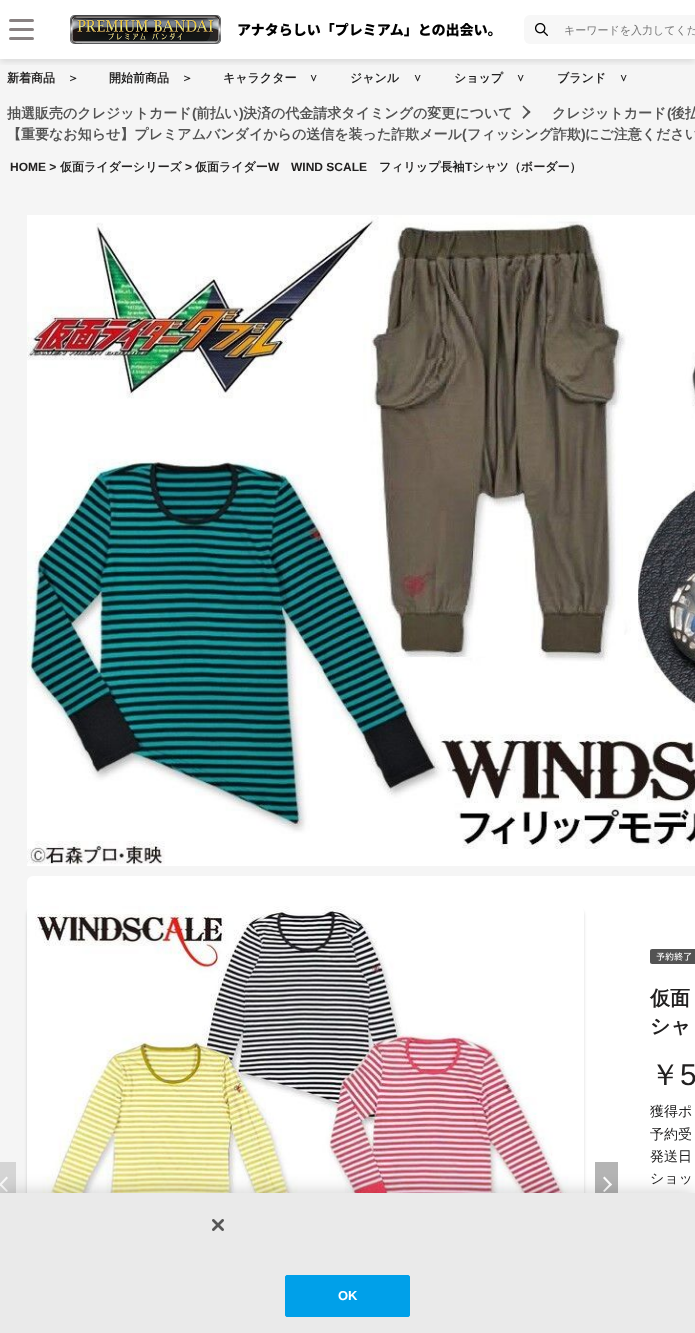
<svg xmlns="http://www.w3.org/2000/svg" width="695" height="1333" viewBox="0 0 695 1333">
  <defs>
    <clipPath id="clip1"><rect x="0" y="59" width="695" height="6"/></clipPath>
  </defs>
  <rect width="100%" height="100%" fill="rgb(255,255,255)"/>
  <rect x="0" y="59" width="695" height="1134" fill="rgb(245,245,245)"/>
  <g clip-path="url(#clip1)">
    <rect x="0" y="3" width="695" height="59" fill="rgba(0,0,0,0.1)" filter="blur(3px)"/>
  </g>
  <rect x="9" y="19" width="25" height="3" rx="1.5" fill="rgb(137,130,130)"/>
  <rect x="9" y="28" width="25" height="3" rx="1.5" fill="rgb(137,130,130)"/>
  <rect x="9" y="37" width="25" height="3" rx="1.5" fill="rgb(137,130,130)"/>
  <image x="70" y="15" width="423" height="29" href="pic1.png"/>
  <rect x="524" y="15" width="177" height="29" rx="6" fill="rgb(247,247,247)"/>
  <image x="535" y="23" width="13" height="13" href="pic2.png"/>
  <text x="564" y="34" font-family="WenQuanYi Zen Hei" font-size="11" font-weight="500" fill="rgb(117,117,117)">キーワードを入力してくだ</text>
  <g font-family="WenQuanYi Zen Hei" font-size="12" font-weight="bold" fill="rgb(34,33,33)">
    <text x="7" y="82">新着商品</text>
    <text x="67" y="82">＞</text>
    <text x="109" y="82">開始前商品</text>
    <text x="181" y="82">＞</text>
    <text x="223" y="82">キャラクター</text>
    <text x="310" y="72" transform="rotate(90 310 72)">＞</text>
    <text x="350" y="82">ジャンル</text>
    <text x="414" y="72" transform="rotate(90 414 72)">＞</text>
    <text x="454" y="82">ショップ</text>
    <text x="517" y="72" transform="rotate(90 517 72)">＞</text>
    <text x="557" y="82">ブランド</text>
    <text x="620" y="72" transform="rotate(90 620 72)">＞</text>
  </g>
  <text x="7" y="118" font-family="WenQuanYi Zen Hei" font-size="14" font-weight="bold" fill="rgb(83,83,83)">抽選販売のクレジットカード</text>
  <text x="192" y="118" font-family="Liberation Sans" font-size="14" font-weight="bold" fill="rgb(83,83,83)">(</text>
  <text x="196" y="118" font-family="WenQuanYi Zen Hei" font-size="14" font-weight="bold" fill="rgb(83,83,83)">前払い</text>
  <text x="239" y="118" font-family="Liberation Sans" font-size="14" font-weight="bold" fill="rgb(83,83,83)">)</text>
  <text x="243" y="118" font-family="WenQuanYi Zen Hei" font-size="14" font-weight="bold" fill="rgb(83,83,83)">決済の代金請求タイミングの変更について</text>
  <path d="M522.5 106.5L523.5 105.5L530.5 112L529 113.5Z" fill="rgb(83,83,83)"/>
  <path d="M522.5 117.5L529 110.5L530.5 112L523.5 119Z" fill="rgb(83,83,83)"/>
  <text x="552" y="118" font-family="WenQuanYi Zen Hei" font-size="14" font-weight="bold" fill="rgb(83,83,83)">クレジットカード</text>
  <text x="667" y="118" font-family="Liberation Sans" font-size="14" font-weight="bold" fill="rgb(83,83,83)">(</text>
  <g font-family="WenQuanYi Zen Hei" font-size="14" font-weight="bold" fill="rgb(83,83,83)">
    <text x="671" y="118">後払</text>
    <text x="7" y="139">【重要なお知らせ】プレミアムバンダイからの送信を装った詐欺メール</text>
  </g>
  <text x="462" y="139" font-family="Liberation Sans" font-size="14" font-weight="bold" fill="rgb(83,83,83)">(</text>
  <text x="467" y="139" font-family="WenQuanYi Zen Hei" font-size="14" font-weight="bold" fill="rgb(83,83,83)">フィッシング詐欺</text>
  <text x="581" y="139" font-family="Liberation Sans" font-size="14" font-weight="bold" fill="rgb(83,83,83)">)</text>
  <text x="585" y="139" font-family="WenQuanYi Zen Hei" font-size="14" font-weight="bold" fill="rgb(83,83,83)">にご注意ください</text>
  <text x="10" y="171" font-family="Liberation Sans" font-size="12" font-weight="bold" fill="rgb(34,33,33)">HOME &gt;</text>
  <text x="60" y="171" font-family="WenQuanYi Zen Hei" font-size="12" font-weight="bold" fill="rgb(34,33,33)">仮面ライダーシリーズ</text>
  <text x="185" y="171" font-family="Liberation Sans" font-size="12" font-weight="bold" fill="rgb(34,33,33)">&gt;</text>
  <text x="195" y="171" font-family="WenQuanYi Zen Hei" font-size="12" font-weight="bold" fill="rgb(34,33,33)">仮面ライダー</text>
  <g font-family="Liberation Sans" font-size="12" font-weight="bold" fill="rgb(34,33,33)">
    <text x="268" y="171">W</text>
    <text x="291" y="171">WIND SCALE</text>
  </g>
  <text x="379" y="171" font-family="WenQuanYi Zen Hei" font-size="12" font-weight="bold" fill="rgb(34,33,33)">フィリップ長袖</text>
  <text x="465" y="171" font-family="Liberation Sans" font-size="12" font-weight="bold" fill="rgb(34,33,33)">T</text>
  <text x="472" y="171" font-family="WenQuanYi Zen Hei" font-size="12" font-weight="bold" fill="rgb(34,33,33)">シャツ（ボーダー）</text>
  <image x="27" y="215" width="668" height="651" href="pic3.png"/>
  <rect x="27" y="876" width="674" height="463" rx="6" fill="rgb(255,255,255)"/>
  <rect x="0" y="1162" width="16" height="31" fill="rgb(213,213,213)"/>
  <path d="M-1 1184.5L6.5 1176.5L8 1178L.5 1186Z" fill="rgb(250,250,250)"/>
  <path d="M-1 1184.5L.5 1183L8 1191L6.5 1192Z" fill="rgb(250,250,250)"/>
  <rect x="27" y="909" width="557" height="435" rx="6" fill="rgba(0,0,0,0.16)" filter="blur(1.5px)"/>
  <image x="27" y="906" width="557" height="287" href="pic4.png"/>
  <rect x="595" y="1162" width="23" height="31" fill="rgb(180,180,180)"/>
  <path d="M604.5 1176.5L612 1184.5L610.5 1186L603 1178Z" fill="rgb(255,255,255)"/>
  <path d="M610.5 1183L612 1184.5L604.5 1192L603 1191Z" fill="rgb(255,255,255)"/>
  <image x="650" y="949" width="45" height="15" href="pic5.png"/>
  <g font-family="WenQuanYi Zen Hei" font-size="20" font-weight="bold" fill="rgb(34,33,33)">
    <text>
      <tspan x="650" y="1005">仮面</tspan>
      <tspan x="650" y="1033">シャ</tspan>
    </text>
  </g>
  <text x="650" y="1085" font-family="WenQuanYi Zen Hei" font-size="30" font-weight="500" fill="rgb(34,33,33)">￥</text>
  <text x="680" y="1085" font-family="Liberation Sans" font-size="30" fill="rgb(34,33,33)">5</text>
  <g font-family="WenQuanYi Zen Hei" font-size="14" font-weight="500" fill="rgb(34,33,33)">
    <text>
      <tspan x="650" y="1116">獲得ポ</tspan>
      <tspan x="650" y="1139">予約受</tspan>
      <tspan x="650" y="1161">発送日</tspan>
      <tspan x="650" y="1183">ショッ</tspan>
    </text>
  </g>
  <rect x="0" y="1193" width="695" height="140" fill="rgba(0,0,0,0.2)" filter="blur(9px)"/>
  <rect x="0" y="1193" width="695" height="140" fill="rgb(234,234,234)"/>
  <image x="212" y="1219" width="12" height="12" href="pic6.png"/>
  <rect x="285.5" y="1275.5" width="124" height="41" rx="1.5" fill="rgb(0,160,233)" stroke="rgb(0,160,233)"/>
  <text x="338" y="1300" font-family="Liberation Sans" font-size="13" font-weight="bold" fill="rgb(255,255,255)">OK</text>
</svg>
